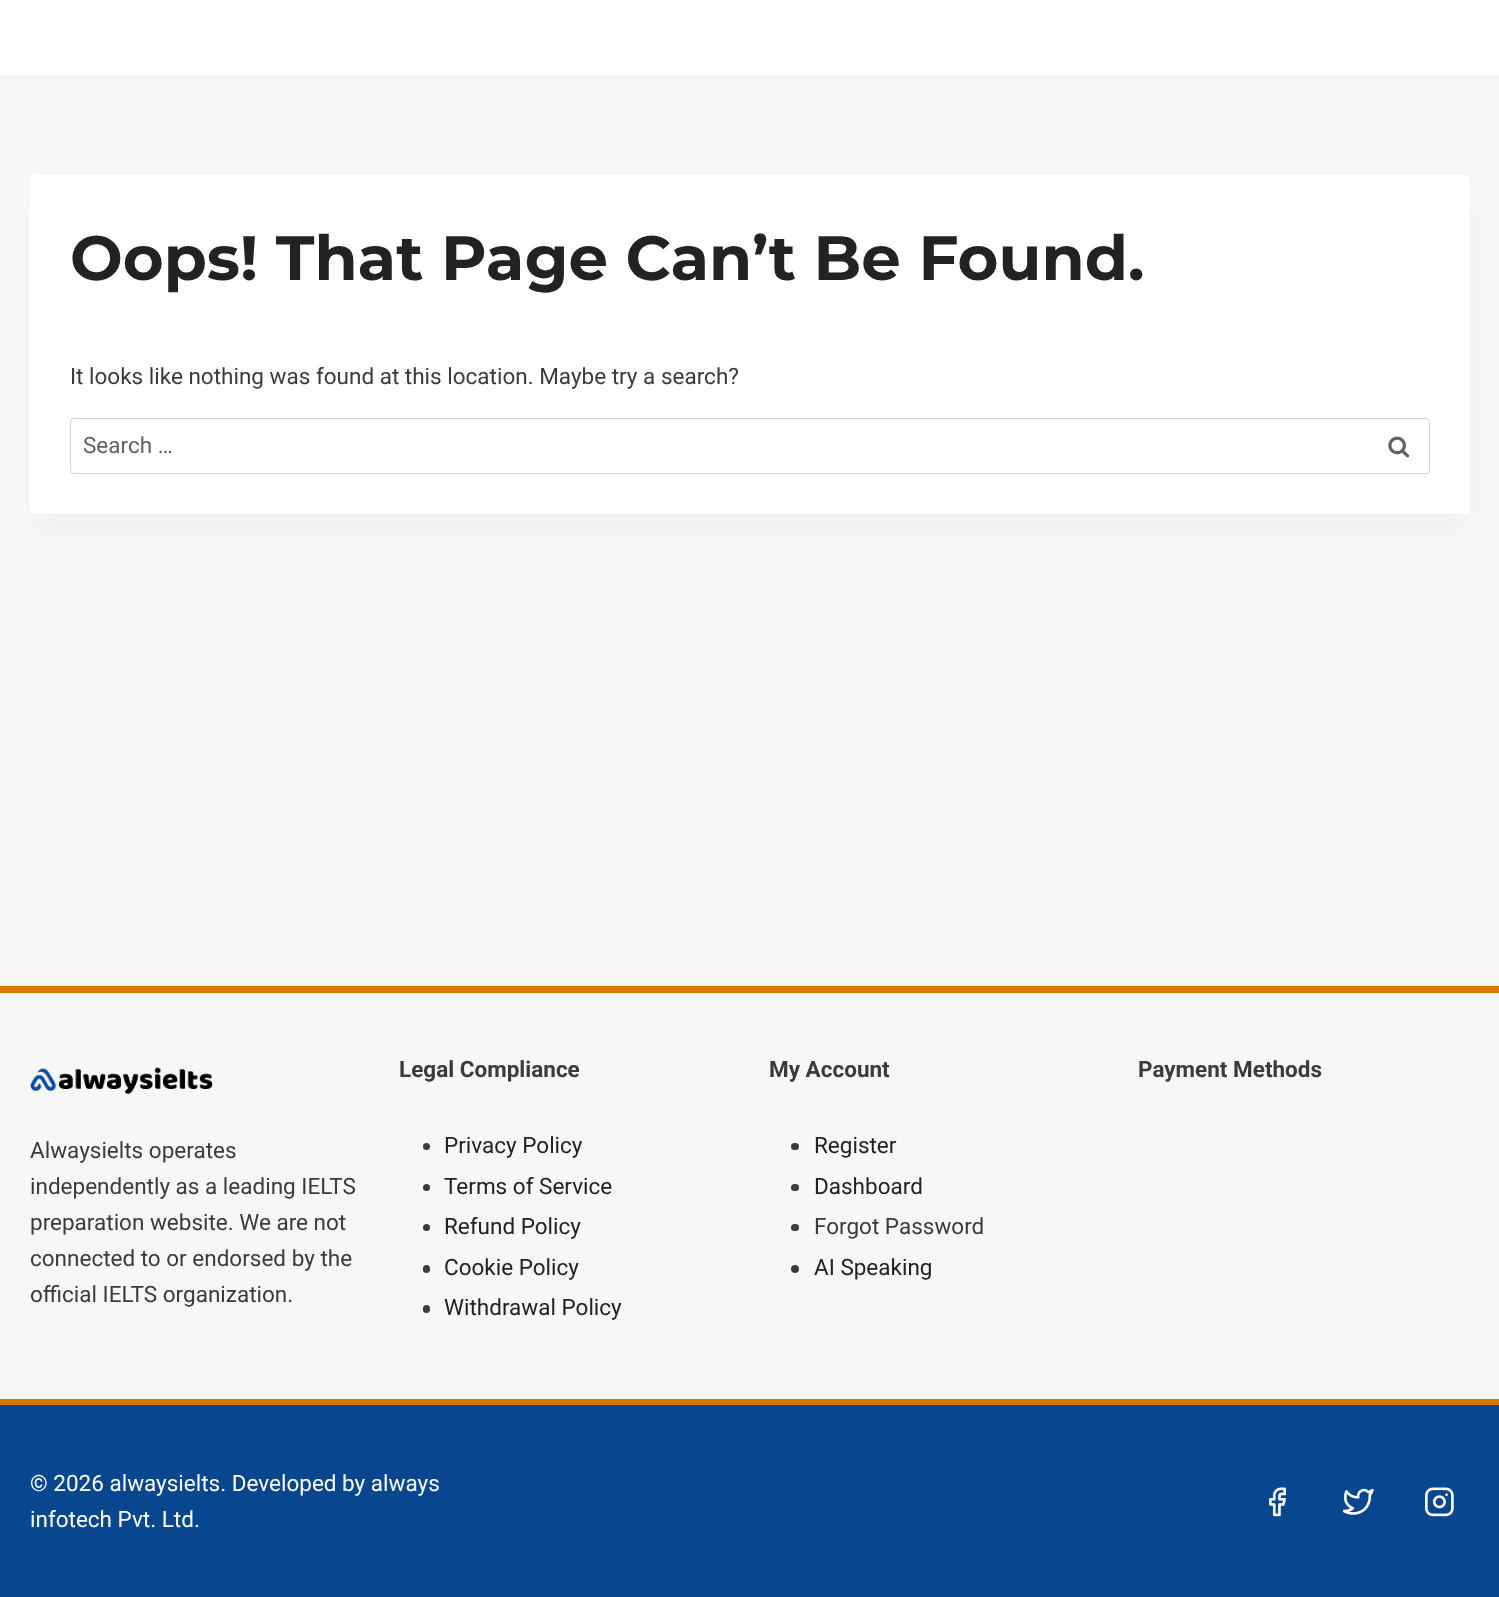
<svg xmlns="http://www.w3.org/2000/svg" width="1499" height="1597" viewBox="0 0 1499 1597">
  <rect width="100%" height="100%" fill="rgb(247,247,247)"/>
  <rect x="0" y="0" width="1499" height="75" fill="rgb(255,255,255)"/>
  <image x="15" y="31" width="117" height="18" href="pic1.png"/>
  <rect x="43" y="206" width="1415" height="314" fill="rgba(0,0,0,0.05)" filter="blur(15.5px)"/>
  <rect x="30" y="175" width="1440" height="339" rx="5" fill="rgb(255,255,255)"/>
  <text x="70" y="280" font-family="Montserrat" font-size="62.5" font-weight="bold" fill="rgb(34,34,34)">Oops! That Page Can’t Be Found.</text>
  <text x="70" y="384" font-family="Roboto" font-size="22.5" fill="rgb(59,59,59)">It looks like nothing was found at this location. Maybe try a search?</text>
  <rect x="70.5" y="418.5" width="1359" height="55" rx="3.5" fill="none" stroke="rgb(203,213,224)"/>
  <text x="83" y="453" font-family="Roboto" font-size="22.5" fill="rgb(98,98,98)">Search …</text>
  <image x="1388" y="436" width="22" height="22" href="pic2.png"/>
  <rect x="0" y="986" width="1499" height="7" fill="rgb(217,119,6)"/>
  <rect x="0" y="1399" width="1499" height="6" fill="rgb(217,119,6)"/>
  <image x="30" y="1067" width="183" height="28" href="pic3.png"/>
  <g font-family="Roboto" font-size="22.5" fill="rgb(59,59,59)">
    <text>
      <tspan x="30" y="1158">Alwaysielts operates</tspan>
      <tspan x="30" y="1194">independently as a leading IELTS</tspan>
      <tspan x="30" y="1230">preparation website. We are not</tspan>
      <tspan x="30" y="1266">connected to or endorsed by the</tspan>
      <tspan x="30" y="1302">official IELTS organization.</tspan>
    </text>
  </g>
  <text x="399" y="1077" font-family="Roboto" font-size="22.5" font-weight="bold" fill="rgb(59,59,59)">Legal Compliance</text>
  <circle cx="426.5" cy="1146.5" r="3.5" fill="rgb(59,59,59)"/>
  <text x="444" y="1153" font-family="Roboto" font-size="22.5" fill="rgb(34,34,34)">Privacy Policy</text>
  <circle cx="426.5" cy="1187.5" r="3.5" fill="rgb(59,59,59)"/>
  <text x="444" y="1194" font-family="Roboto" font-size="22.5" fill="rgb(34,34,34)">Terms of Service</text>
  <circle cx="426.5" cy="1227.5" r="3.5" fill="rgb(59,59,59)"/>
  <text x="444" y="1234" font-family="Roboto" font-size="22.5" fill="rgb(34,34,34)">Refund Policy</text>
  <rect x="423" y="1265" width="7" height="8" rx="3.5" fill="rgb(59,59,59)"/>
  <text x="444" y="1275" font-family="Roboto" font-size="22.5" fill="rgb(34,34,34)">Cookie Policy</text>
  <rect x="423" y="1305" width="7" height="8" rx="3.5" fill="rgb(59,59,59)"/>
  <text x="444" y="1315" font-family="Roboto" font-size="22.5" fill="rgb(34,34,34)">Withdrawal Policy</text>
  <text x="769" y="1077" font-family="Roboto" font-size="22.5" font-weight="bold" fill="rgb(59,59,59)">My Account</text>
  <rect x="791" y="1143" width="8" height="7" rx="3.5" fill="rgb(59,59,59)"/>
  <text x="814" y="1153" font-family="Roboto" font-size="22.5" fill="rgb(34,34,34)">Register</text>
  <rect x="791" y="1184" width="8" height="7" rx="3.5" fill="rgb(59,59,59)"/>
  <text x="814" y="1194" font-family="Roboto" font-size="22.5" fill="rgb(34,34,34)">Dashboard</text>
  <rect x="791" y="1224" width="8" height="7" rx="3.5" fill="rgb(59,59,59)"/>
  <text x="814" y="1234" font-family="Roboto" font-size="22.5" fill="rgb(59,59,59)">Forgot Password</text>
  <circle cx="795" cy="1269" r="4" fill="rgb(59,59,59)"/>
  <text x="814" y="1275" font-family="Roboto" font-size="22.5" fill="rgb(34,34,34)">AI Speaking</text>
  <text x="1138" y="1077" font-family="Roboto" font-size="22.5" font-weight="bold" fill="rgb(59,59,59)">Payment Methods</text>
  <rect x="0" y="1405" width="1499" height="192" fill="rgb(8,71,144)"/>
  <g font-family="Roboto" font-size="22.5" fill="rgb(255,255,255)">
    <text>
      <tspan x="30" y="1491">© 2026 alwaysielts. Developed by always</tspan>
      <tspan x="30" y="1527">infotech Pvt. Ltd.</tspan>
    </text>
  </g>
  <image x="1269" y="1487" width="17" height="30" href="pic4.png"/>
  <image x="1343" y="1488" width="31" height="27" href="pic5.png"/>
  <image x="1425" y="1487" width="29" height="30" href="pic6.png"/>
</svg>
